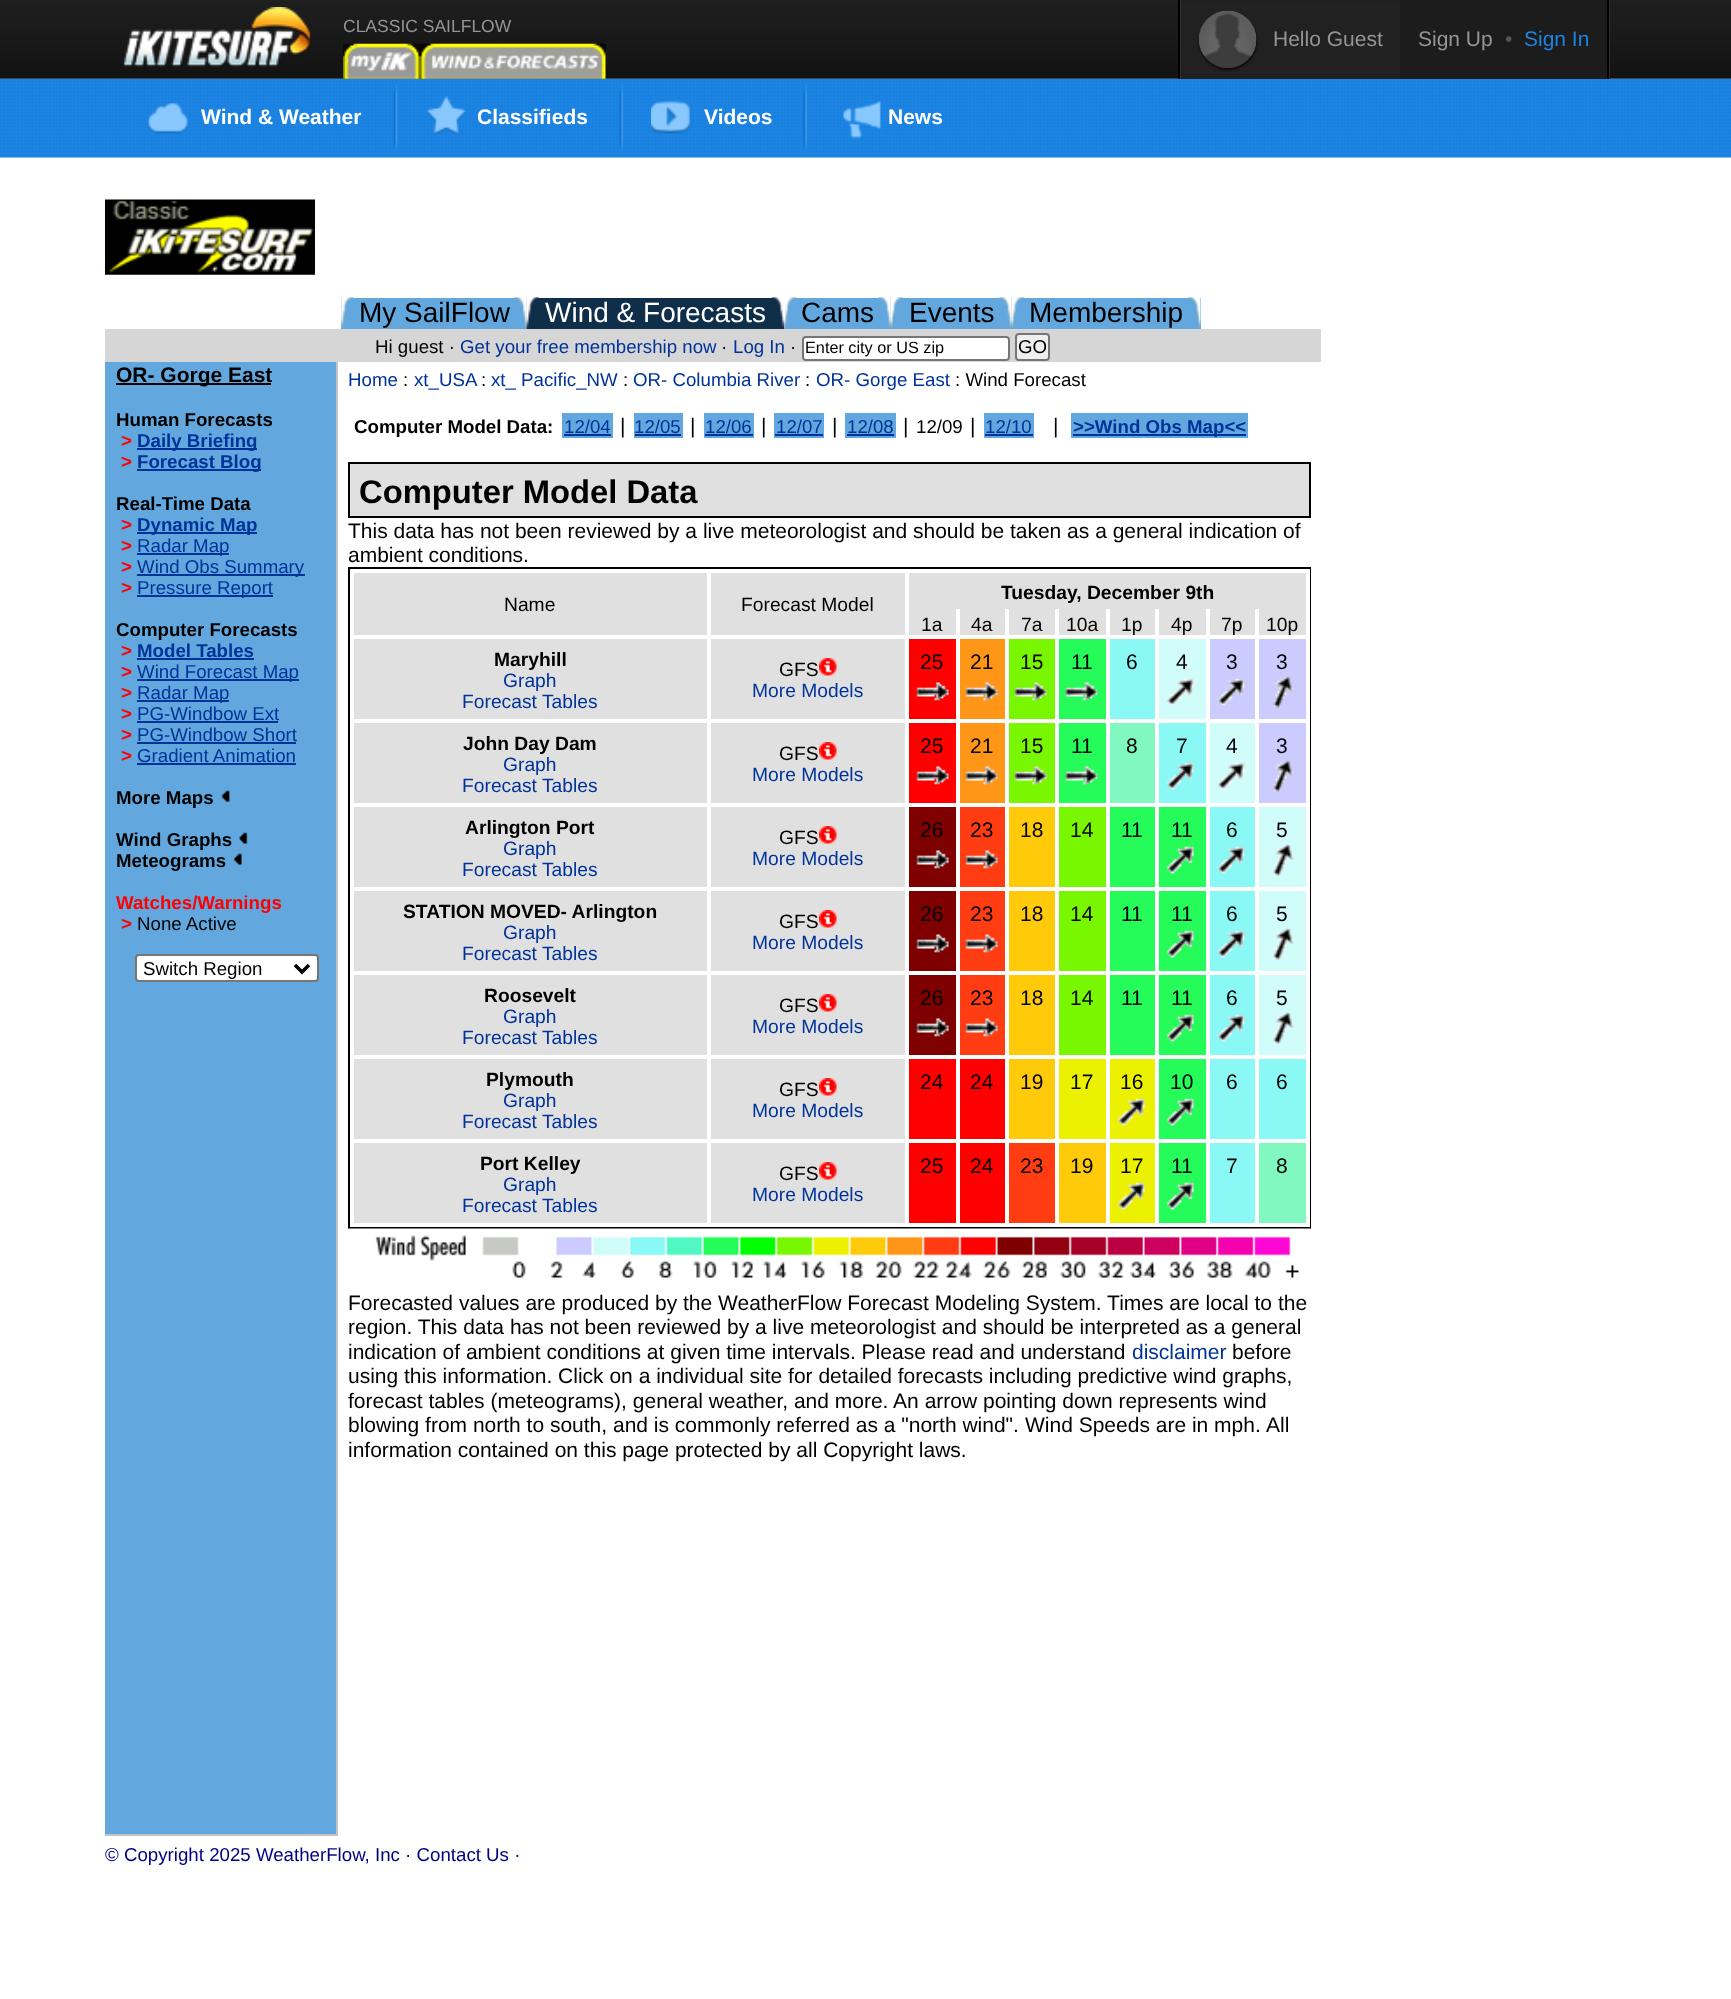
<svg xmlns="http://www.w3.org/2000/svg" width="1731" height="1999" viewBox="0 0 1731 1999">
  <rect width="100%" height="100%" fill="rgb(255,255,255)"/>
  <image x="0" y="78" width="1731" height="80" href="pic6.png"/>
  <image x="0" y="0" width="1731" height="79" href="pic1.png"/>
  <image x="123" y="7" width="189" height="60" href="pic2.png"/>
  <text x="343" y="32" font-family="Liberation Sans" font-size="17.5" fill="rgb(149,149,149)">CLASSIC SAILFLOW</text>
  <image x="343" y="43" width="77" height="36" href="pic3.png"/>
  <image x="420" y="43" width="186" height="36" href="pic4.png"/>
  <rect x="1609" y="0" width="1" height="79" fill="rgb(47,47,47)"/>
  <rect x="1178" y="0" width="2" height="79" fill="rgb(0,0,0)"/>
  <rect x="1607" y="0" width="2" height="79" fill="rgb(0,0,0)"/>
  <rect x="1180" y="0" width="1" height="79" fill="rgb(47,47,47)"/>
  <rect x="1181" y="2" width="219" height="77" fill="rgb(33,33,33)"/>
  <rect x="1199" y="12" width="58" height="58" rx="29" fill="rgba(0,0,0,0.75)" filter="blur(1px)"/>
  <image x="1198" y="10" width="59" height="58" href="pic5.png"/>
  <text x="1273" y="46" font-family="Liberation Sans" font-size="21" fill="rgb(149,149,149)">Hello Guest</text>
  <rect x="1400" y="0" width="207" height="79" fill="rgb(28,28,28)"/>
  <text x="1418" y="46" font-family="Liberation Sans" font-size="21" fill="rgb(149,149,149)">Sign Up</text>
  <text x="1505" y="46" font-family="Liberation Sans" font-size="21" fill="rgb(85,85,85)">•</text>
  <text x="1524" y="46" font-family="Liberation Sans" font-size="21" fill="rgb(28,133,226)">Sign In</text>
  <image x="148" y="102" width="40" height="32" href="pic7.png"/>
  <text x="201" y="124" font-family="Liberation Sans" font-size="21" font-weight="bold" fill="rgb(255,255,255)">Wind &amp; Weather</text>
  <image x="393" y="84" width="5" height="68" href="pic8.png"/>
  <image x="426" y="96" width="40" height="39" href="pic9.png"/>
  <text x="477" y="124" font-family="Liberation Sans" font-size="21" font-weight="bold" fill="rgb(255,255,255)">Classifieds</text>
  <image x="619" y="84" width="4" height="68" href="pic10.png"/>
  <image x="651" y="101" width="39" height="33" href="pic11.png"/>
  <text x="704" y="124" font-family="Liberation Sans" font-size="21" font-weight="bold" fill="rgb(255,255,255)">Videos</text>
  <image x="803" y="84" width="4" height="68" href="pic12.png"/>
  <image x="843" y="101" width="38" height="38" href="pic13.png"/>
  <text x="888" y="124" font-family="Liberation Sans" font-size="21" font-weight="bold" fill="rgb(255,255,255)">News</text>
  <image x="105" y="199" width="210" height="76" href="pic14.png"/>
  <rect x="341" y="298" width="186" height="31" fill="rgb(98,168,223)"/>
  <image x="341" y="297" width="13" height="32" href="pic15.png"/>
  <image x="514" y="297" width="13" height="32" href="pic16.png"/>
  <text x="359" y="322" font-family="Liberation Sans" font-size="28" fill="rgb(0,0,0)">My SailFlow</text>
  <rect x="539" y="298" width="233" height="31" fill="rgb(15,46,74)"/>
  <image x="526" y="297" width="13" height="32" href="pic17.png"/>
  <image x="771" y="297" width="13" height="32" href="pic18.png"/>
  <text x="545" y="322" font-family="Liberation Sans" font-size="28" fill="rgb(255,255,255)">Wind &amp; Forecasts</text>
  <rect x="796" y="298" width="95" height="31" fill="rgb(98,168,223)"/>
  <image x="784" y="297" width="13" height="32" href="pic19.png"/>
  <image x="878" y="297" width="13" height="32" href="pic20.png"/>
  <text x="801" y="322" font-family="Liberation Sans" font-size="28" fill="rgb(0,0,0)">Cams</text>
  <rect x="903" y="298" width="109" height="31" fill="rgb(98,168,223)"/>
  <image x="890" y="297" width="13" height="32" href="pic21.png"/>
  <image x="999" y="297" width="13" height="32" href="pic22.png"/>
  <text x="909" y="322" font-family="Liberation Sans" font-size="28" fill="rgb(0,0,0)">Events</text>
  <rect x="1023" y="298" width="178" height="31" fill="rgb(98,168,223)"/>
  <image x="1011" y="297" width="13" height="32" href="pic23.png"/>
  <image x="1188" y="297" width="13" height="32" href="pic24.png"/>
  <text x="1029" y="322" font-family="Liberation Sans" font-size="28" fill="rgb(0,0,0)">Membership</text>
  <rect x="105" y="329" width="1216" height="33" fill="rgb(214,214,214)"/>
  <text x="375" y="353" font-family="Liberation Sans" font-size="18.7" fill="rgb(0,0,0)">Hi guest ·</text>
  <text x="460" y="353" font-family="Liberation Sans" font-size="18.7" fill="rgb(0,51,153)">Get your free membership now</text>
  <text x="721" y="353" font-family="Liberation Sans" font-size="18.7" fill="rgb(0,0,0)">·</text>
  <text x="733" y="353" font-family="Liberation Sans" font-size="18.7" fill="rgb(0,51,153)">Log In</text>
  <text x="790" y="353" font-family="Liberation Sans" font-size="18.7" fill="rgb(0,0,0)">·</text>
  <rect x="803" y="337" width="206" height="23" rx="3" fill="rgb(255,255,255)" stroke="rgb(118,118,118)" stroke-width="2"/>
  <text x="805" y="353" font-family="Liberation Sans" font-size="16.25" fill="rgb(0,0,0)">Enter city or US zip</text>
  <rect x="1016" y="334" width="33" height="26" rx="3" fill="rgb(239,239,239)" stroke="rgb(118,118,118)" stroke-width="2"/>
  <text x="1018" y="353" font-family="Liberation Sans" font-size="18.7" fill="rgb(0,0,0)">GO</text>
  <rect x="105" y="362" width="231" height="1472" fill="rgb(98,168,223)"/>
  <rect x="336" y="362" width="2" height="1474" fill="rgb(196,196,196)"/>
  <rect x="105" y="1834" width="233" height="2" fill="rgb(196,196,196)"/>
  <rect x="116" y="383" width="155" height="2" fill="rgb(0,0,0)"/>
  <text x="116" y="382" font-family="Liberation Sans" font-size="21" font-weight="bold" fill="rgb(0,0,0)">OR- Gorge East</text>
  <text x="116" y="426" font-family="Liberation Sans" font-size="18.7" font-weight="bold" fill="rgb(0,0,0)">Human Forecasts</text>
  <text x="121" y="447" font-family="Liberation Sans" font-size="18.7" font-weight="bold" fill="rgb(255,0,0)">&gt;</text>
  <rect x="137" y="448" width="120" height="2" fill="rgb(0,51,153)"/>
  <text x="137" y="447" font-family="Liberation Sans" font-size="18.7" font-weight="bold" fill="rgb(0,51,153)">Daily Briefing</text>
  <text x="121" y="468" font-family="Liberation Sans" font-size="18.7" font-weight="bold" fill="rgb(255,0,0)">&gt;</text>
  <rect x="137" y="469" width="124" height="2" fill="rgb(0,51,153)"/>
  <text x="137" y="468" font-family="Liberation Sans" font-size="18.7" font-weight="bold" fill="rgb(0,51,153)">Forecast Blog</text>
  <text x="116" y="510" font-family="Liberation Sans" font-size="18.7" font-weight="bold" fill="rgb(0,0,0)">Real-Time Data</text>
  <text x="121" y="531" font-family="Liberation Sans" font-size="18.7" font-weight="bold" fill="rgb(255,0,0)">&gt;</text>
  <rect x="137" y="532" width="120" height="2" fill="rgb(0,51,153)"/>
  <text x="137" y="531" font-family="Liberation Sans" font-size="18.7" font-weight="bold" fill="rgb(0,51,153)">Dynamic Map</text>
  <text x="121" y="552" font-family="Liberation Sans" font-size="18.7" font-weight="bold" fill="rgb(255,0,0)">&gt;</text>
  <rect x="137" y="553" width="92" height="2" fill="rgb(0,51,153)"/>
  <text x="137" y="552" font-family="Liberation Sans" font-size="18.7" fill="rgb(0,51,153)">Radar Map</text>
  <text x="121" y="573" font-family="Liberation Sans" font-size="18.7" font-weight="bold" fill="rgb(255,0,0)">&gt;</text>
  <rect x="137" y="574" width="168" height="2" fill="rgb(0,51,153)"/>
  <text x="137" y="573" font-family="Liberation Sans" font-size="18.7" fill="rgb(0,51,153)">Wind Obs Summary</text>
  <text x="121" y="594" font-family="Liberation Sans" font-size="18.7" font-weight="bold" fill="rgb(255,0,0)">&gt;</text>
  <rect x="137" y="595" width="136" height="2" fill="rgb(0,51,153)"/>
  <text x="137" y="594" font-family="Liberation Sans" font-size="18.7" fill="rgb(0,51,153)">Pressure Report</text>
  <text x="116" y="636" font-family="Liberation Sans" font-size="18.7" font-weight="bold" fill="rgb(0,0,0)">Computer Forecasts</text>
  <text x="121" y="657" font-family="Liberation Sans" font-size="18.7" font-weight="bold" fill="rgb(255,0,0)">&gt;</text>
  <text x="137" y="657" font-family="Liberation Sans" font-size="18.7" font-weight="bold" fill="rgb(0,51,153)">Model Tables</text>
  <rect x="137" y="658" width="117" height="2" fill="rgb(0,51,153)"/>
  <text x="121" y="678" font-family="Liberation Sans" font-size="18.7" font-weight="bold" fill="rgb(255,0,0)">&gt;</text>
  <rect x="137" y="679" width="162" height="2" fill="rgb(0,51,153)"/>
  <text x="137" y="678" font-family="Liberation Sans" font-size="18.7" fill="rgb(0,51,153)">Wind Forecast Map</text>
  <text x="121" y="699" font-family="Liberation Sans" font-size="18.7" font-weight="bold" fill="rgb(255,0,0)">&gt;</text>
  <rect x="137" y="700" width="92" height="2" fill="rgb(0,51,153)"/>
  <text x="137" y="699" font-family="Liberation Sans" font-size="18.7" fill="rgb(0,51,153)">Radar Map</text>
  <text x="121" y="720" font-family="Liberation Sans" font-size="18.7" font-weight="bold" fill="rgb(255,0,0)">&gt;</text>
  <text x="137" y="720" font-family="Liberation Sans" font-size="18.7" fill="rgb(0,51,153)">PG-Windbow Ext</text>
  <rect x="137" y="721" width="141" height="2" fill="rgb(0,51,153)"/>
  <text x="121" y="741" font-family="Liberation Sans" font-size="18.7" font-weight="bold" fill="rgb(255,0,0)">&gt;</text>
  <text x="137" y="741" font-family="Liberation Sans" font-size="18.7" fill="rgb(0,51,153)">PG-Windbow Short</text>
  <rect x="137" y="742" width="159" height="2" fill="rgb(0,51,153)"/>
  <text x="121" y="762" font-family="Liberation Sans" font-size="18.7" font-weight="bold" fill="rgb(255,0,0)">&gt;</text>
  <text x="137" y="762" font-family="Liberation Sans" font-size="18.7" fill="rgb(0,51,153)">Gradient Animation</text>
  <rect x="137" y="763" width="159" height="2" fill="rgb(0,51,153)"/>
  <text x="116" y="804" font-family="Liberation Sans" font-size="18.7" font-weight="bold" fill="rgb(0,0,0)">More Maps</text>
  <image x="221" y="790" width="9" height="12" href="pic25.png"/>
  <text x="116" y="846" font-family="Liberation Sans" font-size="18.7" font-weight="bold" fill="rgb(0,0,0)">Wind Graphs</text>
  <image x="239" y="832" width="9" height="12" href="pic26.png"/>
  <text x="116" y="867" font-family="Liberation Sans" font-size="18.7" font-weight="bold" fill="rgb(0,0,0)">Meteograms</text>
  <image x="234" y="853" width="8" height="12" href="pic27.png"/>
  <g font-family="Liberation Sans" font-size="18.7" font-weight="bold" fill="rgb(255,0,0)">
    <text x="116" y="909">Watches/Warnings</text>
    <text x="121" y="930">&gt;</text>
  </g>
  <text x="137" y="930" font-family="Liberation Sans" font-size="18.7" fill="rgb(0,0,0)">None Active</text>
  <rect x="136" y="955" width="182" height="26" rx="3" fill="rgb(255,255,255)" stroke="rgb(118,118,118)" stroke-width="2"/>
  <path d="M295 965L302 972L309 965" fill="none" stroke="rgb(0,0,0)" stroke-width="3.5"/>
  <text x="143" y="975" font-family="Liberation Sans" font-size="18.7" fill="rgb(0,0,0)">Switch Region</text>
  <text x="348" y="386" font-family="Liberation Sans" font-size="18.7" fill="rgb(0,51,153)">Home</text>
  <text x="403" y="386" font-family="Liberation Sans" font-size="18.7" fill="rgb(0,0,0)">:</text>
  <text x="414" y="386" font-family="Liberation Sans" font-size="18.7" fill="rgb(0,51,153)">xt_USA</text>
  <text x="481" y="386" font-family="Liberation Sans" font-size="18.7" fill="rgb(0,0,0)">:</text>
  <text x="491" y="386" font-family="Liberation Sans" font-size="18.7" fill="rgb(0,51,153)">xt_ Pacific_NW</text>
  <text x="623" y="386" font-family="Liberation Sans" font-size="18.7" fill="rgb(0,0,0)">:</text>
  <text x="633" y="386" font-family="Liberation Sans" font-size="18.7" fill="rgb(0,51,153)">OR- Columbia River</text>
  <text x="805" y="386" font-family="Liberation Sans" font-size="18.7" fill="rgb(0,0,0)">:</text>
  <text x="816" y="386" font-family="Liberation Sans" font-size="18.7" fill="rgb(0,51,153)">OR- Gorge East</text>
  <text x="955" y="386" font-family="Liberation Sans" font-size="18.7" fill="rgb(0,0,0)">: Wind Forecast</text>
  <text x="354" y="433" font-family="Liberation Sans" font-size="18.7" font-weight="bold" fill="rgb(0,0,0)">Computer Model Data:</text>
  <rect x="562" y="413" width="51" height="25" fill="rgb(98,168,223)"/>
  <text x="564" y="433" font-family="Liberation Sans" font-size="18.7" fill="rgb(0,51,153)">12/04</text>
  <rect x="564" y="434" width="47" height="2" fill="rgb(0,51,153)"/>
  <text x="620" y="433" font-family="Liberation Sans" font-size="21" fill="rgb(0,0,0)">|</text>
  <rect x="634" y="413" width="49" height="25" fill="rgb(98,168,223)"/>
  <text x="634" y="433" font-family="Liberation Sans" font-size="18.7" fill="rgb(0,51,153)">12/05</text>
  <rect x="635" y="434" width="46" height="2" fill="rgb(0,51,153)"/>
  <text x="690" y="433" font-family="Liberation Sans" font-size="21" fill="rgb(0,0,0)">|</text>
  <rect x="704" y="413" width="50" height="25" fill="rgb(98,168,223)"/>
  <text x="705" y="433" font-family="Liberation Sans" font-size="18.7" fill="rgb(0,51,153)">12/06</text>
  <rect x="705" y="434" width="48" height="2" fill="rgb(0,51,153)"/>
  <text x="761" y="433" font-family="Liberation Sans" font-size="21" fill="rgb(0,0,0)">|</text>
  <rect x="774" y="413" width="50" height="25" fill="rgb(98,168,223)"/>
  <text x="776" y="433" font-family="Liberation Sans" font-size="18.7" fill="rgb(0,51,153)">12/07</text>
  <rect x="775" y="434" width="48" height="2" fill="rgb(0,51,153)"/>
  <text x="832" y="433" font-family="Liberation Sans" font-size="21" fill="rgb(0,0,0)">|</text>
  <rect x="845" y="413" width="51" height="25" fill="rgb(98,168,223)"/>
  <text x="847" y="433" font-family="Liberation Sans" font-size="18.7" fill="rgb(0,51,153)">12/08</text>
  <rect x="847" y="434" width="47" height="2" fill="rgb(0,51,153)"/>
  <text x="903" y="433" font-family="Liberation Sans" font-size="21" fill="rgb(0,0,0)">|</text>
  <text x="916" y="433" font-family="Liberation Sans" font-size="18.7" fill="rgb(0,0,0)">12/09</text>
  <text x="970" y="433" font-family="Liberation Sans" font-size="21" fill="rgb(0,0,0)">|</text>
  <rect x="984" y="413" width="50" height="25" fill="rgb(98,168,223)"/>
  <text x="985" y="433" font-family="Liberation Sans" font-size="18.7" fill="rgb(0,51,153)">12/10</text>
  <rect x="985" y="434" width="48" height="2" fill="rgb(0,51,153)"/>
  <text x="1053" y="433" font-family="Liberation Sans" font-size="21" fill="rgb(0,0,0)">|</text>
  <rect x="1071" y="413" width="177" height="25" fill="rgb(98,168,223)"/>
  <rect x="1073" y="434" width="173" height="2" fill="rgb(0,51,153)"/>
  <text x="1073" y="433" font-family="Liberation Sans" font-size="18.7" font-weight="bold" fill="rgb(0,51,153)">&gt;&gt;Wind Obs Map&lt;&lt;</text>
  <rect x="349" y="463" width="961" height="54" fill="rgb(224,224,224)" stroke="rgb(0,0,0)" stroke-width="2"/>
  <text x="359" y="503" font-family="Liberation Sans" font-size="32.75" font-weight="bold" fill="rgb(0,0,0)">Computer Model Data</text>
  <g font-family="Liberation Sans" font-size="21" fill="rgb(0,0,0)">
    <text>
      <tspan x="348" y="538">This data has not been reviewed by a live meteorologist and should be taken as a general indication of</tspan>
      <tspan x="348" y="562">ambient conditions.</tspan>
    </text>
  </g>
  <rect x="349" y="568" width="961" height="660" fill="none" stroke="rgb(0,0,0)" stroke-width="2"/>
  <rect x="354" y="573" width="952" height="650" fill="rgb(224,224,224)"/>
  <text x="1001" y="599" font-family="Liberation Sans" font-size="19.25" font-weight="bold" fill="rgb(0,0,0)">Tuesday, December 9th</text>
  <text x="504" y="611" font-family="Liberation Sans" font-size="19.25" fill="rgb(0,0,0)">Name</text>
  <rect x="1255" y="635" width="54" height="4" fill="rgb(255,255,255)"/>
  <rect x="1255" y="719" width="54" height="4" fill="rgb(255,255,255)"/>
  <rect x="1255" y="803" width="54" height="4" fill="rgb(255,255,255)"/>
  <rect x="1255" y="887" width="54" height="4" fill="rgb(255,255,255)"/>
  <rect x="1255" y="971" width="54" height="4" fill="rgb(255,255,255)"/>
  <rect x="1255" y="1055" width="54" height="4" fill="rgb(255,255,255)"/>
  <rect x="1255" y="1139" width="54" height="4" fill="rgb(255,255,255)"/>
  <rect x="1255" y="1139" width="4" height="88" fill="rgb(255,255,255)"/>
  <rect x="1206" y="1139" width="52" height="4" fill="rgb(255,255,255)"/>
  <rect x="1255" y="1055" width="4" height="88" fill="rgb(255,255,255)"/>
  <rect x="1206" y="1055" width="52" height="4" fill="rgb(255,255,255)"/>
  <rect x="1255" y="971" width="4" height="88" fill="rgb(255,255,255)"/>
  <rect x="1206" y="971" width="52" height="4" fill="rgb(255,255,255)"/>
  <rect x="1255" y="887" width="4" height="88" fill="rgb(255,255,255)"/>
  <rect x="1206" y="887" width="52" height="4" fill="rgb(255,255,255)"/>
  <rect x="1255" y="803" width="4" height="88" fill="rgb(255,255,255)"/>
  <rect x="1206" y="803" width="52" height="4" fill="rgb(255,255,255)"/>
  <rect x="1255" y="719" width="4" height="88" fill="rgb(255,255,255)"/>
  <rect x="1206" y="719" width="52" height="4" fill="rgb(255,255,255)"/>
  <rect x="1255" y="635" width="4" height="88" fill="rgb(255,255,255)"/>
  <rect x="1206" y="635" width="52" height="4" fill="rgb(255,255,255)"/>
  <rect x="1206" y="1139" width="4" height="88" fill="rgb(255,255,255)"/>
  <rect x="1155" y="1139" width="54" height="4" fill="rgb(255,255,255)"/>
  <rect x="1206" y="1055" width="4" height="88" fill="rgb(255,255,255)"/>
  <rect x="1155" y="1055" width="54" height="4" fill="rgb(255,255,255)"/>
  <rect x="1206" y="971" width="4" height="88" fill="rgb(255,255,255)"/>
  <rect x="1155" y="971" width="54" height="4" fill="rgb(255,255,255)"/>
  <rect x="1206" y="887" width="4" height="88" fill="rgb(255,255,255)"/>
  <rect x="1155" y="887" width="54" height="4" fill="rgb(255,255,255)"/>
  <rect x="1206" y="803" width="4" height="88" fill="rgb(255,255,255)"/>
  <rect x="1155" y="803" width="54" height="4" fill="rgb(255,255,255)"/>
  <rect x="1206" y="719" width="4" height="88" fill="rgb(255,255,255)"/>
  <rect x="1155" y="719" width="54" height="4" fill="rgb(255,255,255)"/>
  <rect x="1206" y="635" width="4" height="88" fill="rgb(255,255,255)"/>
  <rect x="1155" y="635" width="54" height="4" fill="rgb(255,255,255)"/>
  <rect x="1155" y="1139" width="4" height="88" fill="rgb(255,255,255)"/>
  <rect x="1106" y="1139" width="53" height="4" fill="rgb(255,255,255)"/>
  <rect x="1155" y="1055" width="4" height="88" fill="rgb(255,255,255)"/>
  <rect x="1106" y="1055" width="53" height="4" fill="rgb(255,255,255)"/>
  <rect x="1155" y="971" width="4" height="88" fill="rgb(255,255,255)"/>
  <rect x="1106" y="971" width="53" height="4" fill="rgb(255,255,255)"/>
  <rect x="1155" y="887" width="4" height="88" fill="rgb(255,255,255)"/>
  <rect x="1106" y="887" width="53" height="4" fill="rgb(255,255,255)"/>
  <rect x="1155" y="803" width="4" height="88" fill="rgb(255,255,255)"/>
  <rect x="1106" y="803" width="53" height="4" fill="rgb(255,255,255)"/>
  <rect x="1155" y="719" width="4" height="88" fill="rgb(255,255,255)"/>
  <rect x="1106" y="719" width="53" height="4" fill="rgb(255,255,255)"/>
  <rect x="1155" y="635" width="4" height="88" fill="rgb(255,255,255)"/>
  <rect x="1106" y="635" width="53" height="4" fill="rgb(255,255,255)"/>
  <rect x="1106" y="1139" width="4" height="88" fill="rgb(255,255,255)"/>
  <rect x="1055" y="1139" width="55" height="4" fill="rgb(255,255,255)"/>
  <rect x="1106" y="1055" width="4" height="88" fill="rgb(255,255,255)"/>
  <rect x="1055" y="1055" width="55" height="4" fill="rgb(255,255,255)"/>
  <rect x="1106" y="971" width="4" height="88" fill="rgb(255,255,255)"/>
  <rect x="1055" y="971" width="55" height="4" fill="rgb(255,255,255)"/>
  <rect x="1106" y="887" width="4" height="88" fill="rgb(255,255,255)"/>
  <rect x="1055" y="887" width="55" height="4" fill="rgb(255,255,255)"/>
  <rect x="1106" y="803" width="4" height="88" fill="rgb(255,255,255)"/>
  <rect x="1055" y="803" width="55" height="4" fill="rgb(255,255,255)"/>
  <rect x="1106" y="719" width="4" height="88" fill="rgb(255,255,255)"/>
  <rect x="1055" y="719" width="55" height="4" fill="rgb(255,255,255)"/>
  <rect x="1106" y="635" width="4" height="88" fill="rgb(255,255,255)"/>
  <rect x="1055" y="635" width="55" height="4" fill="rgb(255,255,255)"/>
  <rect x="1055" y="1139" width="4" height="88" fill="rgb(255,255,255)"/>
  <rect x="1005" y="1139" width="54" height="4" fill="rgb(255,255,255)"/>
  <rect x="1055" y="1055" width="4" height="88" fill="rgb(255,255,255)"/>
  <rect x="1005" y="1055" width="54" height="4" fill="rgb(255,255,255)"/>
  <rect x="1055" y="971" width="4" height="88" fill="rgb(255,255,255)"/>
  <rect x="1005" y="971" width="54" height="4" fill="rgb(255,255,255)"/>
  <rect x="1055" y="887" width="4" height="88" fill="rgb(255,255,255)"/>
  <rect x="1005" y="887" width="54" height="4" fill="rgb(255,255,255)"/>
  <rect x="1055" y="803" width="4" height="88" fill="rgb(255,255,255)"/>
  <rect x="1005" y="803" width="54" height="4" fill="rgb(255,255,255)"/>
  <rect x="1055" y="719" width="4" height="88" fill="rgb(255,255,255)"/>
  <rect x="1005" y="719" width="54" height="4" fill="rgb(255,255,255)"/>
  <rect x="1055" y="635" width="4" height="88" fill="rgb(255,255,255)"/>
  <rect x="1005" y="635" width="54" height="4" fill="rgb(255,255,255)"/>
  <rect x="1005" y="1139" width="4" height="88" fill="rgb(255,255,255)"/>
  <rect x="956" y="1139" width="52" height="4" fill="rgb(255,255,255)"/>
  <rect x="1005" y="1055" width="4" height="88" fill="rgb(255,255,255)"/>
  <rect x="956" y="1055" width="52" height="4" fill="rgb(255,255,255)"/>
  <rect x="1005" y="971" width="4" height="88" fill="rgb(255,255,255)"/>
  <rect x="956" y="971" width="52" height="4" fill="rgb(255,255,255)"/>
  <rect x="1005" y="887" width="4" height="88" fill="rgb(255,255,255)"/>
  <rect x="956" y="887" width="52" height="4" fill="rgb(255,255,255)"/>
  <rect x="1005" y="803" width="4" height="88" fill="rgb(255,255,255)"/>
  <rect x="956" y="803" width="52" height="4" fill="rgb(255,255,255)"/>
  <rect x="1005" y="719" width="4" height="88" fill="rgb(255,255,255)"/>
  <rect x="956" y="719" width="52" height="4" fill="rgb(255,255,255)"/>
  <rect x="1005" y="635" width="4" height="88" fill="rgb(255,255,255)"/>
  <rect x="956" y="635" width="52" height="4" fill="rgb(255,255,255)"/>
  <rect x="956" y="1139" width="4" height="88" fill="rgb(255,255,255)"/>
  <rect x="905" y="1139" width="54" height="4" fill="rgb(255,255,255)"/>
  <rect x="956" y="1055" width="4" height="88" fill="rgb(255,255,255)"/>
  <rect x="905" y="1055" width="54" height="4" fill="rgb(255,255,255)"/>
  <rect x="956" y="971" width="4" height="88" fill="rgb(255,255,255)"/>
  <rect x="905" y="971" width="54" height="4" fill="rgb(255,255,255)"/>
  <rect x="956" y="887" width="4" height="88" fill="rgb(255,255,255)"/>
  <rect x="905" y="887" width="54" height="4" fill="rgb(255,255,255)"/>
  <rect x="956" y="803" width="4" height="88" fill="rgb(255,255,255)"/>
  <rect x="905" y="803" width="54" height="4" fill="rgb(255,255,255)"/>
  <rect x="956" y="719" width="4" height="88" fill="rgb(255,255,255)"/>
  <rect x="905" y="719" width="54" height="4" fill="rgb(255,255,255)"/>
  <rect x="956" y="635" width="4" height="88" fill="rgb(255,255,255)"/>
  <rect x="905" y="635" width="54" height="4" fill="rgb(255,255,255)"/>
  <rect x="905" y="1139" width="4" height="88" fill="rgb(255,255,255)"/>
  <rect x="707" y="1139" width="201" height="4" fill="rgb(255,255,255)"/>
  <rect x="905" y="1055" width="4" height="88" fill="rgb(255,255,255)"/>
  <rect x="707" y="1055" width="201" height="4" fill="rgb(255,255,255)"/>
  <rect x="905" y="971" width="4" height="88" fill="rgb(255,255,255)"/>
  <rect x="707" y="971" width="201" height="4" fill="rgb(255,255,255)"/>
  <rect x="905" y="887" width="4" height="88" fill="rgb(255,255,255)"/>
  <rect x="707" y="887" width="201" height="4" fill="rgb(255,255,255)"/>
  <rect x="905" y="803" width="4" height="88" fill="rgb(255,255,255)"/>
  <rect x="707" y="803" width="201" height="4" fill="rgb(255,255,255)"/>
  <rect x="905" y="719" width="4" height="88" fill="rgb(255,255,255)"/>
  <rect x="707" y="719" width="201" height="4" fill="rgb(255,255,255)"/>
  <rect x="905" y="635" width="4" height="88" fill="rgb(255,255,255)"/>
  <rect x="707" y="635" width="201" height="4" fill="rgb(255,255,255)"/>
  <rect x="707" y="1139" width="4" height="88" fill="rgb(255,255,255)"/>
  <rect x="350" y="1139" width="361" height="4" fill="rgb(255,255,255)"/>
  <rect x="707" y="1055" width="4" height="88" fill="rgb(255,255,255)"/>
  <rect x="350" y="1055" width="361" height="4" fill="rgb(255,255,255)"/>
  <rect x="707" y="971" width="4" height="88" fill="rgb(255,255,255)"/>
  <rect x="350" y="971" width="361" height="4" fill="rgb(255,255,255)"/>
  <rect x="707" y="887" width="4" height="88" fill="rgb(255,255,255)"/>
  <rect x="350" y="887" width="361" height="4" fill="rgb(255,255,255)"/>
  <rect x="707" y="803" width="4" height="88" fill="rgb(255,255,255)"/>
  <rect x="350" y="803" width="361" height="4" fill="rgb(255,255,255)"/>
  <rect x="707" y="719" width="4" height="88" fill="rgb(255,255,255)"/>
  <rect x="350" y="719" width="361" height="4" fill="rgb(255,255,255)"/>
  <rect x="707" y="635" width="4" height="88" fill="rgb(255,255,255)"/>
  <rect x="350" y="635" width="361" height="4" fill="rgb(255,255,255)"/>
  <rect x="707" y="569" width="4" height="70" fill="rgb(255,255,255)"/>
  <text x="741" y="611" font-family="Liberation Sans" font-size="19.25" fill="rgb(0,0,0)">Forecast Model</text>
  <rect x="905" y="569" width="4" height="70" fill="rgb(255,255,255)"/>
  <text x="921" y="631" font-family="Liberation Sans" font-size="19.25" fill="rgb(0,0,0)">1a</text>
  <rect x="956" y="609" width="4" height="30" fill="rgb(255,255,255)"/>
  <text x="971" y="631" font-family="Liberation Sans" font-size="19.25" fill="rgb(0,0,0)">4a</text>
  <rect x="1005" y="609" width="4" height="30" fill="rgb(255,255,255)"/>
  <text x="1021" y="631" font-family="Liberation Sans" font-size="19.25" fill="rgb(0,0,0)">7a</text>
  <rect x="1055" y="609" width="4" height="30" fill="rgb(255,255,255)"/>
  <text x="1066" y="631" font-family="Liberation Sans" font-size="19.25" fill="rgb(0,0,0)">10a</text>
  <rect x="1106" y="609" width="4" height="30" fill="rgb(255,255,255)"/>
  <text x="1121" y="631" font-family="Liberation Sans" font-size="19.25" fill="rgb(0,0,0)">1p</text>
  <rect x="1155" y="609" width="4" height="30" fill="rgb(255,255,255)"/>
  <text x="1171" y="631" font-family="Liberation Sans" font-size="19.25" fill="rgb(0,0,0)">4p</text>
  <rect x="1206" y="609" width="4" height="30" fill="rgb(255,255,255)"/>
  <text x="1221" y="631" font-family="Liberation Sans" font-size="19.25" fill="rgb(0,0,0)">7p</text>
  <rect x="1255" y="609" width="4" height="30" fill="rgb(255,255,255)"/>
  <text x="1266" y="631" font-family="Liberation Sans" font-size="19.25" fill="rgb(0,0,0)">10p</text>
  <text x="494" y="666" font-family="Liberation Sans" font-size="19.25" font-weight="bold" fill="rgb(0,0,0)">Maryhill</text>
  <g font-family="Liberation Sans" font-size="19.25" fill="rgb(0,51,153)">
    <text x="503" y="687">Graph</text>
    <text x="462" y="708">Forecast Tables</text>
  </g>
  <text x="779" y="676" font-family="Liberation Sans" font-size="19.25" fill="rgb(0,0,0)">GFS</text>
  <image x="819" y="658" width="18" height="18" href="pic28.png"/>
  <text x="752" y="697" font-family="Liberation Sans" font-size="19.25" fill="rgb(0,51,153)">More Models</text>
  <rect x="909" y="639" width="47" height="80" fill="rgb(255,0,0)"/>
  <text x="920" y="669" font-family="Liberation Sans" font-size="21" fill="rgb(0,0,0)">25</text>
  <image x="916" y="682" width="33" height="19" href="pic29.png"/>
  <rect x="960" y="639" width="45" height="80" fill="rgb(255,150,23)"/>
  <text x="970" y="669" font-family="Liberation Sans" font-size="21" fill="rgb(0,0,0)">21</text>
  <image x="965" y="682" width="33" height="19" href="pic30.png"/>
  <rect x="1009" y="639" width="46" height="80" fill="rgb(120,247,0)"/>
  <text x="1020" y="669" font-family="Liberation Sans" font-size="21" fill="rgb(0,0,0)">15</text>
  <image x="1014" y="682" width="33" height="19" href="pic31.png"/>
  <rect x="1059" y="639" width="47" height="80" fill="rgb(38,252,89)"/>
  <text x="1071" y="669" font-family="Liberation Sans" font-size="21" fill="rgb(0,0,0)">11</text>
  <image x="1065" y="682" width="33" height="19" href="pic32.png"/>
  <rect x="1110" y="639" width="45" height="80" fill="rgb(138,248,244)"/>
  <text x="1126" y="669" font-family="Liberation Sans" font-size="21" fill="rgb(0,0,0)">6</text>
  <rect x="1159" y="639" width="47" height="80" fill="rgb(208,252,250)"/>
  <text x="1176" y="669" font-family="Liberation Sans" font-size="21" fill="rgb(0,0,0)">4</text>
  <image x="1167" y="678" width="27" height="28" href="pic33.png"/>
  <rect x="1210" y="639" width="45" height="80" fill="rgb(203,203,255)"/>
  <text x="1226" y="669" font-family="Liberation Sans" font-size="21" fill="rgb(0,0,0)">3</text>
  <image x="1217" y="678" width="28" height="28" href="pic34.png"/>
  <rect x="1259" y="639" width="47" height="80" fill="rgb(203,203,255)"/>
  <text x="1276" y="669" font-family="Liberation Sans" font-size="21" fill="rgb(0,0,0)">3</text>
  <image x="1273" y="676" width="21" height="32" href="pic35.png"/>
  <text x="463" y="750" font-family="Liberation Sans" font-size="19.25" font-weight="bold" fill="rgb(0,0,0)">John Day Dam</text>
  <g font-family="Liberation Sans" font-size="19.25" fill="rgb(0,51,153)">
    <text x="503" y="771">Graph</text>
    <text x="462" y="792">Forecast Tables</text>
  </g>
  <text x="779" y="760" font-family="Liberation Sans" font-size="19.25" fill="rgb(0,0,0)">GFS</text>
  <image x="819" y="742" width="18" height="18" href="pic28.png"/>
  <text x="752" y="781" font-family="Liberation Sans" font-size="19.25" fill="rgb(0,51,153)">More Models</text>
  <rect x="909" y="723" width="47" height="80" fill="rgb(255,0,0)"/>
  <text x="920" y="753" font-family="Liberation Sans" font-size="21" fill="rgb(0,0,0)">25</text>
  <image x="916" y="766" width="33" height="19" href="pic29.png"/>
  <rect x="960" y="723" width="45" height="80" fill="rgb(255,150,23)"/>
  <text x="970" y="753" font-family="Liberation Sans" font-size="21" fill="rgb(0,0,0)">21</text>
  <image x="965" y="766" width="33" height="19" href="pic30.png"/>
  <rect x="1009" y="723" width="46" height="80" fill="rgb(120,247,0)"/>
  <text x="1020" y="753" font-family="Liberation Sans" font-size="21" fill="rgb(0,0,0)">15</text>
  <image x="1014" y="766" width="33" height="19" href="pic31.png"/>
  <rect x="1059" y="723" width="47" height="80" fill="rgb(38,252,89)"/>
  <text x="1071" y="753" font-family="Liberation Sans" font-size="21" fill="rgb(0,0,0)">11</text>
  <image x="1065" y="766" width="33" height="19" href="pic32.png"/>
  <rect x="1110" y="723" width="45" height="80" fill="rgb(130,248,193)"/>
  <text x="1126" y="753" font-family="Liberation Sans" font-size="21" fill="rgb(0,0,0)">8</text>
  <rect x="1159" y="723" width="47" height="80" fill="rgb(138,248,244)"/>
  <text x="1176" y="753" font-family="Liberation Sans" font-size="21" fill="rgb(0,0,0)">7</text>
  <image x="1166" y="762" width="28" height="28" href="pic36.png"/>
  <rect x="1210" y="723" width="45" height="80" fill="rgb(208,252,250)"/>
  <text x="1226" y="753" font-family="Liberation Sans" font-size="21" fill="rgb(0,0,0)">4</text>
  <image x="1217" y="762" width="28" height="28" href="pic37.png"/>
  <rect x="1259" y="723" width="47" height="80" fill="rgb(203,203,255)"/>
  <text x="1276" y="753" font-family="Liberation Sans" font-size="21" fill="rgb(0,0,0)">3</text>
  <image x="1273" y="760" width="21" height="32" href="pic35.png"/>
  <text x="465" y="834" font-family="Liberation Sans" font-size="19.25" font-weight="bold" fill="rgb(0,0,0)">Arlington Port</text>
  <g font-family="Liberation Sans" font-size="19.25" fill="rgb(0,51,153)">
    <text x="503" y="855">Graph</text>
    <text x="462" y="876">Forecast Tables</text>
  </g>
  <text x="779" y="844" font-family="Liberation Sans" font-size="19.25" fill="rgb(0,0,0)">GFS</text>
  <image x="819" y="826" width="18" height="18" href="pic28.png"/>
  <text x="752" y="865" font-family="Liberation Sans" font-size="19.25" fill="rgb(0,51,153)">More Models</text>
  <rect x="909" y="807" width="47" height="80" fill="rgb(127,0,0)"/>
  <text x="920" y="837" font-family="Liberation Sans" font-size="21" fill="rgb(0,0,0)">26</text>
  <image x="916" y="850" width="33" height="19" href="pic38.png"/>
  <rect x="960" y="807" width="45" height="80" fill="rgb(255,60,18)"/>
  <text x="970" y="837" font-family="Liberation Sans" font-size="21" fill="rgb(0,0,0)">23</text>
  <image x="965" y="850" width="33" height="19" href="pic39.png"/>
  <rect x="1009" y="807" width="46" height="80" fill="rgb(255,202,9)"/>
  <text x="1020" y="837" font-family="Liberation Sans" font-size="21" fill="rgb(0,0,0)">18</text>
  <rect x="1059" y="807" width="47" height="80" fill="rgb(120,247,0)"/>
  <text x="1070" y="837" font-family="Liberation Sans" font-size="21" fill="rgb(0,0,0)">14</text>
  <rect x="1110" y="807" width="45" height="80" fill="rgb(38,252,89)"/>
  <text x="1121" y="837" font-family="Liberation Sans" font-size="21" fill="rgb(0,0,0)">11</text>
  <rect x="1159" y="807" width="47" height="80" fill="rgb(38,252,89)"/>
  <text x="1171" y="837" font-family="Liberation Sans" font-size="21" fill="rgb(0,0,0)">11</text>
  <image x="1166" y="846" width="28" height="28" href="pic40.png"/>
  <rect x="1210" y="807" width="45" height="80" fill="rgb(138,248,244)"/>
  <text x="1226" y="837" font-family="Liberation Sans" font-size="21" fill="rgb(0,0,0)">6</text>
  <image x="1217" y="846" width="28" height="28" href="pic41.png"/>
  <rect x="1259" y="807" width="47" height="80" fill="rgb(208,252,250)"/>
  <text x="1276" y="837" font-family="Liberation Sans" font-size="21" fill="rgb(0,0,0)">5</text>
  <image x="1273" y="844" width="21" height="32" href="pic42.png"/>
  <text x="403" y="918" font-family="Liberation Sans" font-size="19.25" font-weight="bold" fill="rgb(0,0,0)">STATION MOVED- Arlington</text>
  <g font-family="Liberation Sans" font-size="19.25" fill="rgb(0,51,153)">
    <text x="503" y="939">Graph</text>
    <text x="462" y="960">Forecast Tables</text>
  </g>
  <text x="779" y="928" font-family="Liberation Sans" font-size="19.25" fill="rgb(0,0,0)">GFS</text>
  <image x="819" y="910" width="18" height="18" href="pic28.png"/>
  <text x="752" y="949" font-family="Liberation Sans" font-size="19.25" fill="rgb(0,51,153)">More Models</text>
  <rect x="909" y="891" width="47" height="80" fill="rgb(127,0,0)"/>
  <text x="920" y="921" font-family="Liberation Sans" font-size="21" fill="rgb(0,0,0)">26</text>
  <image x="916" y="934" width="33" height="19" href="pic38.png"/>
  <rect x="960" y="891" width="45" height="80" fill="rgb(255,60,18)"/>
  <text x="970" y="921" font-family="Liberation Sans" font-size="21" fill="rgb(0,0,0)">23</text>
  <image x="965" y="934" width="33" height="19" href="pic39.png"/>
  <rect x="1009" y="891" width="46" height="80" fill="rgb(255,202,9)"/>
  <text x="1020" y="921" font-family="Liberation Sans" font-size="21" fill="rgb(0,0,0)">18</text>
  <rect x="1059" y="891" width="47" height="80" fill="rgb(120,247,0)"/>
  <text x="1070" y="921" font-family="Liberation Sans" font-size="21" fill="rgb(0,0,0)">14</text>
  <rect x="1110" y="891" width="45" height="80" fill="rgb(38,252,89)"/>
  <text x="1121" y="921" font-family="Liberation Sans" font-size="21" fill="rgb(0,0,0)">11</text>
  <rect x="1159" y="891" width="47" height="80" fill="rgb(38,252,89)"/>
  <text x="1171" y="921" font-family="Liberation Sans" font-size="21" fill="rgb(0,0,0)">11</text>
  <image x="1166" y="930" width="28" height="28" href="pic40.png"/>
  <rect x="1210" y="891" width="45" height="80" fill="rgb(138,248,244)"/>
  <text x="1226" y="921" font-family="Liberation Sans" font-size="21" fill="rgb(0,0,0)">6</text>
  <image x="1217" y="930" width="28" height="28" href="pic41.png"/>
  <rect x="1259" y="891" width="47" height="80" fill="rgb(208,252,250)"/>
  <text x="1276" y="921" font-family="Liberation Sans" font-size="21" fill="rgb(0,0,0)">5</text>
  <image x="1273" y="928" width="21" height="32" href="pic42.png"/>
  <text x="484" y="1002" font-family="Liberation Sans" font-size="19.25" font-weight="bold" fill="rgb(0,0,0)">Roosevelt</text>
  <g font-family="Liberation Sans" font-size="19.25" fill="rgb(0,51,153)">
    <text x="503" y="1023">Graph</text>
    <text x="462" y="1044">Forecast Tables</text>
  </g>
  <text x="779" y="1012" font-family="Liberation Sans" font-size="19.25" fill="rgb(0,0,0)">GFS</text>
  <image x="819" y="994" width="18" height="18" href="pic28.png"/>
  <text x="752" y="1033" font-family="Liberation Sans" font-size="19.25" fill="rgb(0,51,153)">More Models</text>
  <rect x="909" y="975" width="47" height="80" fill="rgb(127,0,0)"/>
  <text x="920" y="1005" font-family="Liberation Sans" font-size="21" fill="rgb(0,0,0)">26</text>
  <image x="916" y="1018" width="33" height="19" href="pic38.png"/>
  <rect x="960" y="975" width="45" height="80" fill="rgb(255,60,18)"/>
  <text x="970" y="1005" font-family="Liberation Sans" font-size="21" fill="rgb(0,0,0)">23</text>
  <image x="965" y="1018" width="33" height="19" href="pic39.png"/>
  <rect x="1009" y="975" width="46" height="80" fill="rgb(255,202,9)"/>
  <text x="1020" y="1005" font-family="Liberation Sans" font-size="21" fill="rgb(0,0,0)">18</text>
  <rect x="1059" y="975" width="47" height="80" fill="rgb(120,247,0)"/>
  <text x="1070" y="1005" font-family="Liberation Sans" font-size="21" fill="rgb(0,0,0)">14</text>
  <rect x="1110" y="975" width="45" height="80" fill="rgb(38,252,89)"/>
  <text x="1121" y="1005" font-family="Liberation Sans" font-size="21" fill="rgb(0,0,0)">11</text>
  <rect x="1159" y="975" width="47" height="80" fill="rgb(38,252,89)"/>
  <text x="1171" y="1005" font-family="Liberation Sans" font-size="21" fill="rgb(0,0,0)">11</text>
  <image x="1166" y="1014" width="28" height="28" href="pic40.png"/>
  <rect x="1210" y="975" width="45" height="80" fill="rgb(138,248,244)"/>
  <text x="1226" y="1005" font-family="Liberation Sans" font-size="21" fill="rgb(0,0,0)">6</text>
  <image x="1217" y="1014" width="28" height="28" href="pic41.png"/>
  <rect x="1259" y="975" width="47" height="80" fill="rgb(208,252,250)"/>
  <text x="1276" y="1005" font-family="Liberation Sans" font-size="21" fill="rgb(0,0,0)">5</text>
  <image x="1273" y="1012" width="21" height="32" href="pic42.png"/>
  <text x="486" y="1086" font-family="Liberation Sans" font-size="19.25" font-weight="bold" fill="rgb(0,0,0)">Plymouth</text>
  <g font-family="Liberation Sans" font-size="19.25" fill="rgb(0,51,153)">
    <text x="503" y="1107">Graph</text>
    <text x="462" y="1128">Forecast Tables</text>
  </g>
  <text x="779" y="1096" font-family="Liberation Sans" font-size="19.25" fill="rgb(0,0,0)">GFS</text>
  <image x="819" y="1078" width="18" height="18" href="pic28.png"/>
  <text x="752" y="1117" font-family="Liberation Sans" font-size="19.25" fill="rgb(0,51,153)">More Models</text>
  <rect x="909" y="1059" width="47" height="80" fill="rgb(255,0,0)"/>
  <text x="920" y="1089" font-family="Liberation Sans" font-size="21" fill="rgb(0,0,0)">24</text>
  <rect x="960" y="1059" width="45" height="80" fill="rgb(255,0,0)"/>
  <text x="970" y="1089" font-family="Liberation Sans" font-size="21" fill="rgb(0,0,0)">24</text>
  <rect x="1009" y="1059" width="46" height="80" fill="rgb(255,202,9)"/>
  <text x="1020" y="1089" font-family="Liberation Sans" font-size="21" fill="rgb(0,0,0)">19</text>
  <rect x="1059" y="1059" width="47" height="80" fill="rgb(235,241,0)"/>
  <text x="1070" y="1089" font-family="Liberation Sans" font-size="21" fill="rgb(0,0,0)">17</text>
  <rect x="1110" y="1059" width="45" height="80" fill="rgb(235,241,0)"/>
  <text x="1120" y="1089" font-family="Liberation Sans" font-size="21" fill="rgb(0,0,0)">16</text>
  <image x="1117" y="1098" width="28" height="28" href="pic43.png"/>
  <rect x="1159" y="1059" width="47" height="80" fill="rgb(38,252,89)"/>
  <text x="1170" y="1089" font-family="Liberation Sans" font-size="21" fill="rgb(0,0,0)">10</text>
  <image x="1166" y="1098" width="28" height="28" href="pic40.png"/>
  <rect x="1210" y="1059" width="45" height="80" fill="rgb(138,248,244)"/>
  <text x="1226" y="1089" font-family="Liberation Sans" font-size="21" fill="rgb(0,0,0)">6</text>
  <rect x="1259" y="1059" width="47" height="80" fill="rgb(138,248,244)"/>
  <text x="1276" y="1089" font-family="Liberation Sans" font-size="21" fill="rgb(0,0,0)">6</text>
  <text x="480" y="1170" font-family="Liberation Sans" font-size="19.25" font-weight="bold" fill="rgb(0,0,0)">Port Kelley</text>
  <g font-family="Liberation Sans" font-size="19.25" fill="rgb(0,51,153)">
    <text x="503" y="1191">Graph</text>
    <text x="462" y="1212">Forecast Tables</text>
  </g>
  <text x="779" y="1180" font-family="Liberation Sans" font-size="19.25" fill="rgb(0,0,0)">GFS</text>
  <image x="819" y="1162" width="18" height="18" href="pic28.png"/>
  <text x="752" y="1201" font-family="Liberation Sans" font-size="19.25" fill="rgb(0,51,153)">More Models</text>
  <rect x="909" y="1143" width="47" height="80" fill="rgb(255,0,0)"/>
  <text x="920" y="1173" font-family="Liberation Sans" font-size="21" fill="rgb(0,0,0)">25</text>
  <rect x="960" y="1143" width="45" height="80" fill="rgb(255,0,0)"/>
  <text x="970" y="1173" font-family="Liberation Sans" font-size="21" fill="rgb(0,0,0)">24</text>
  <rect x="1009" y="1143" width="46" height="80" fill="rgb(255,60,18)"/>
  <text x="1020" y="1173" font-family="Liberation Sans" font-size="21" fill="rgb(0,0,0)">23</text>
  <rect x="1059" y="1143" width="47" height="80" fill="rgb(255,202,9)"/>
  <text x="1070" y="1173" font-family="Liberation Sans" font-size="21" fill="rgb(0,0,0)">19</text>
  <rect x="1110" y="1143" width="45" height="80" fill="rgb(235,241,0)"/>
  <text x="1120" y="1173" font-family="Liberation Sans" font-size="21" fill="rgb(0,0,0)">17</text>
  <image x="1117" y="1182" width="28" height="28" href="pic43.png"/>
  <rect x="1159" y="1143" width="47" height="80" fill="rgb(38,252,89)"/>
  <text x="1171" y="1173" font-family="Liberation Sans" font-size="21" fill="rgb(0,0,0)">11</text>
  <image x="1166" y="1182" width="28" height="28" href="pic40.png"/>
  <rect x="1210" y="1143" width="45" height="80" fill="rgb(138,248,244)"/>
  <text x="1226" y="1173" font-family="Liberation Sans" font-size="21" fill="rgb(0,0,0)">7</text>
  <rect x="1259" y="1143" width="47" height="80" fill="rgb(130,248,193)"/>
  <rect x="1309" y="569" width="1" height="658" fill="rgb(255,255,255)"/>
  <text x="1276" y="1173" font-family="Liberation Sans" font-size="21" fill="rgb(0,0,0)">8</text>
  <image x="348" y="1228" width="963" height="50" href="pic44.png"/>
  <g font-family="Liberation Sans" font-size="21" fill="rgb(0,0,0)">
    <text>
      <tspan x="348" y="1310">Forecasted values are produced by the WeatherFlow Forecast Modeling System. Times are local to the</tspan>
      <tspan x="348" y="1334">region. This data has not been reviewed by a live meteorologist and should be interpreted as a general</tspan>
      <tspan x="348" y="1359">indication of ambient conditions at given time intervals. Please read and understand</tspan>
    </text>
  </g>
  <text x="1132" y="1359" font-family="Liberation Sans" font-size="21" fill="rgb(0,51,153)">disclaimer</text>
  <g font-family="Liberation Sans" font-size="21" fill="rgb(0,0,0)">
    <text x="1232" y="1359">before</text>
    <text>
      <tspan x="348" y="1383">using this information. Click on a individual site for detailed forecasts including predictive wind graphs,</tspan>
      <tspan x="348" y="1408">forecast tables (meteograms), general weather, and more. An arrow pointing down represents wind</tspan>
      <tspan x="348" y="1432">blowing from north to south, and is commonly referred as a "north wind".</tspan>
    </text>
    <text x="1025" y="1432">Wind Speeds are in mph.</text>
    <text x="1266" y="1432">All</text>
    <text x="348" y="1457">information contained on this page protected by all Copyright laws.</text>
  </g>
  <text x="105" y="1861" font-family="Liberation Sans" font-size="18.7" fill="rgb(0,0,128)">© Copyright 2025 WeatherFlow, Inc · Contact Us ·</text>
</svg>
